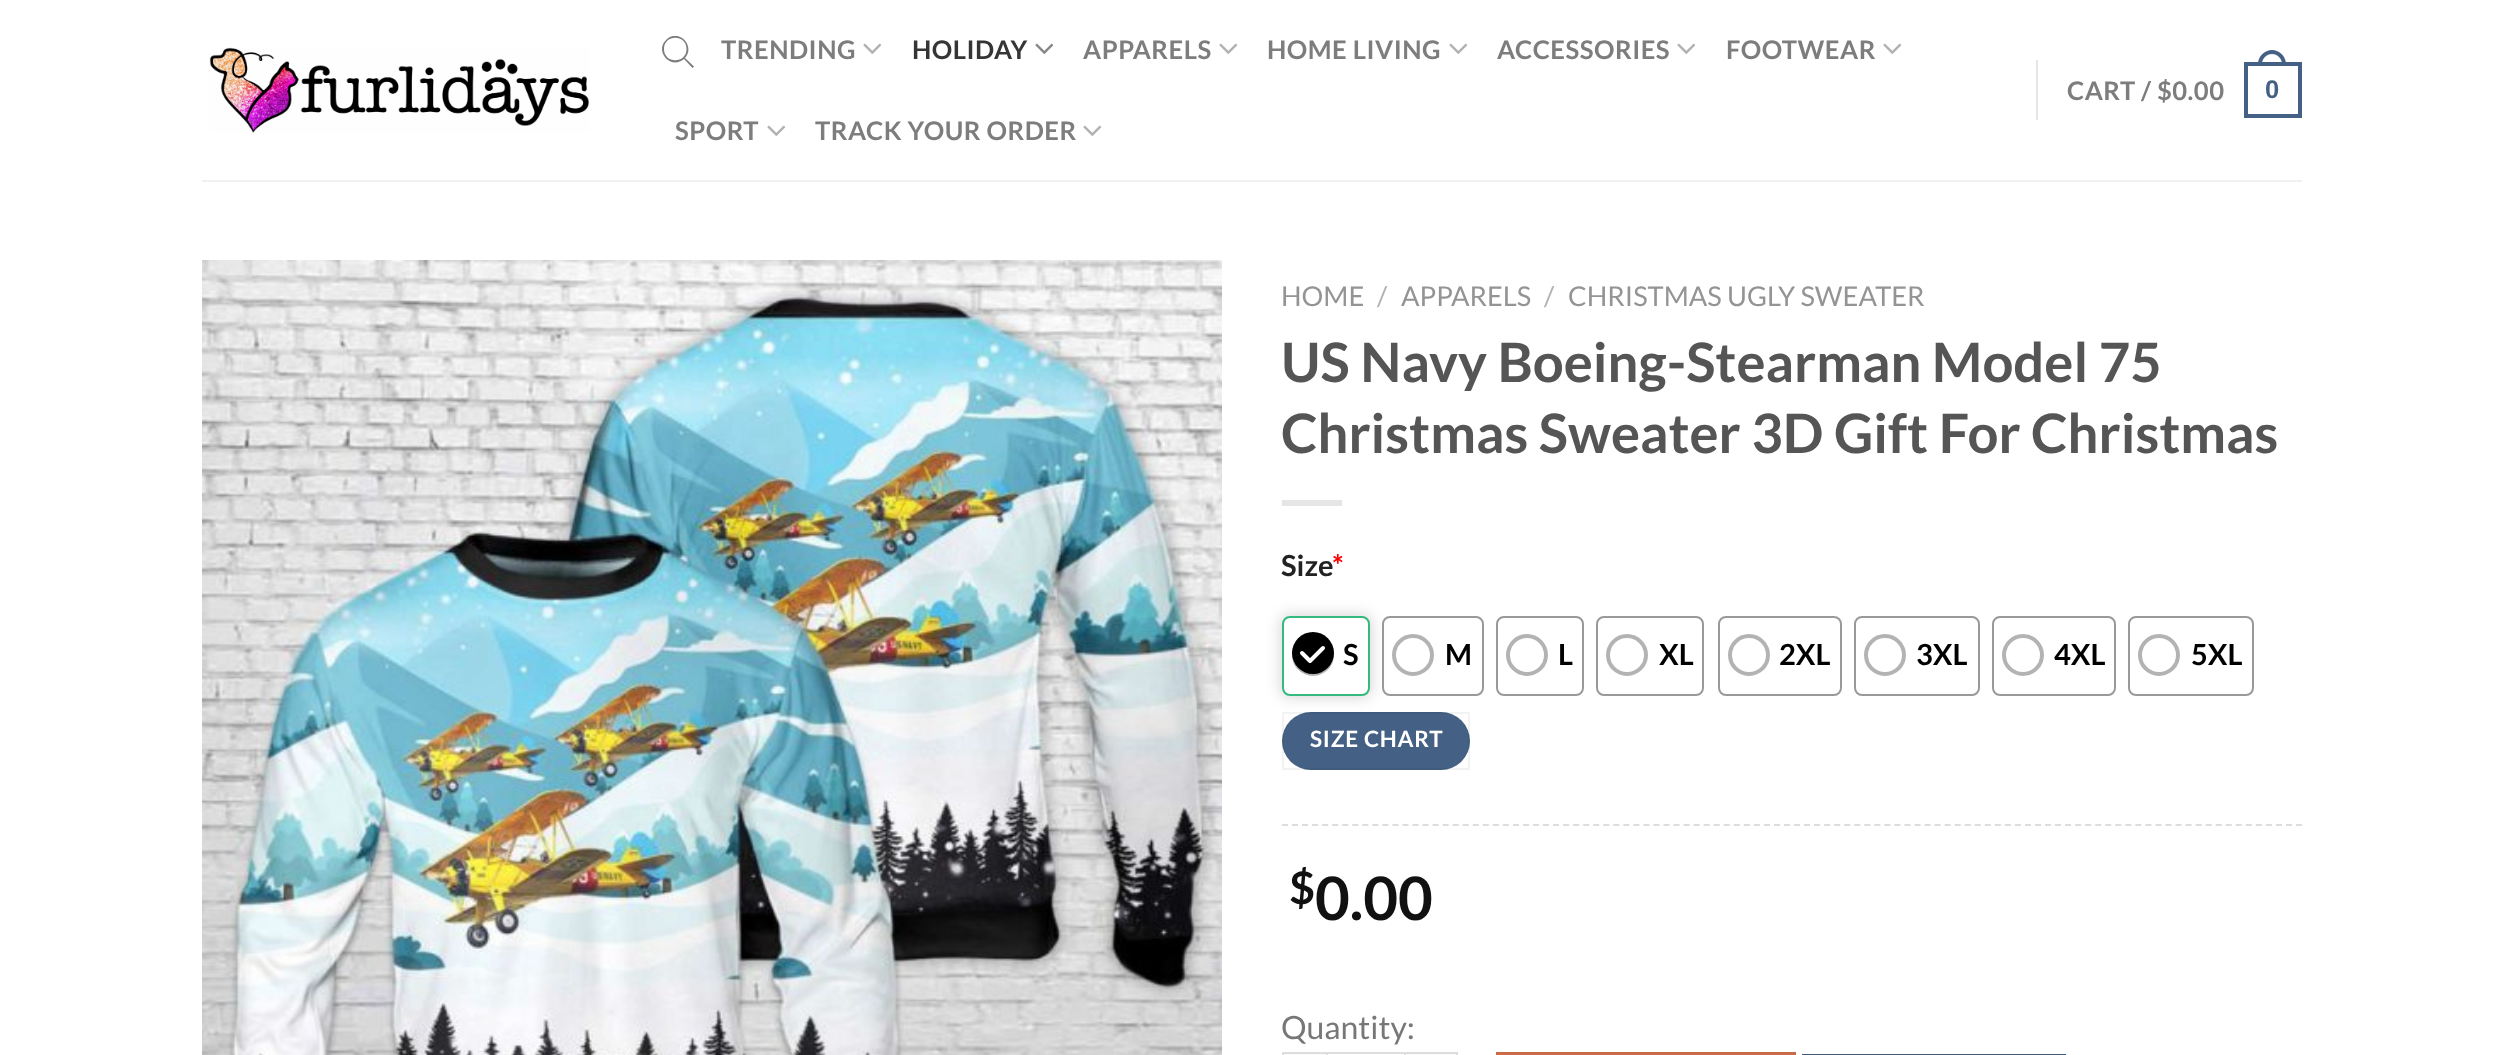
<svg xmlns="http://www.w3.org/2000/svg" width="2501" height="1055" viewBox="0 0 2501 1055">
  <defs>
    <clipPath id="clip1"><rect x="662" y="36" width="32" height="32"/></clipPath>
  </defs>
  <rect width="100%" height="100%" fill="rgb(255,255,255)"/>
  <image x="209" y="47" width="381" height="86" href="pic1.png"/>
  <g clip-path="url(#clip1)">
    <path d="M694 66.5L685 58C696 45.5 678 27.5 666 40C654 52 671.5 70 684 59L692.5 68ZM664 49C664 34 686.5 34 686.5 49C686.5 64 664 64 664 49Z" fill="rgb(125,125,125)"/>
  </g>
  <text x="721" y="59" font-family="Lato" font-size="25.6" font-weight="bold" letter-spacing="0.5" fill="rgb(125,125,125)">TRENDING</text>
  <image x="863" y="43" width="19" height="11" href="pic2.png"/>
  <text x="912" y="59" font-family="Lato" font-size="25.6" font-weight="bold" letter-spacing="0.5" fill="rgb(53,53,53)">HOLIDAY</text>
  <image x="1035" y="43" width="19" height="11" href="pic3.png"/>
  <text x="1083" y="59" font-family="Lato" font-size="25.6" font-weight="bold" letter-spacing="0.5" fill="rgb(125,125,125)">APPARELS</text>
  <image x="1219" y="43" width="19" height="11" href="pic2.png"/>
  <text x="1267" y="59" font-family="Lato" font-size="25.6" font-weight="bold" letter-spacing="0.5" fill="rgb(125,125,125)">HOME LIVING</text>
  <image x="1449" y="43" width="19" height="11" href="pic2.png"/>
  <text x="1497" y="59" font-family="Lato" font-size="25.6" font-weight="bold" letter-spacing="0.5" fill="rgb(125,125,125)">ACCESSORIES</text>
  <image x="1677" y="43" width="19" height="11" href="pic2.png"/>
  <text x="1726" y="59" font-family="Lato" font-size="25.6" font-weight="bold" letter-spacing="0.5" fill="rgb(125,125,125)">FOOTWEAR</text>
  <image x="1883" y="43" width="19" height="11" href="pic2.png"/>
  <text x="675" y="140" font-family="Lato" font-size="25.6" font-weight="bold" letter-spacing="0.5" fill="rgb(125,125,125)">SPORT</text>
  <image x="767" y="125" width="19" height="11" href="pic2.png"/>
  <text x="815" y="140" font-family="Lato" font-size="25.6" font-weight="bold" letter-spacing="0.5" fill="rgb(125,125,125)">TRACK YOUR ORDER</text>
  <image x="1083" y="125" width="19" height="11" href="pic2.png"/>
  <rect x="2036" y="60" width="2" height="60" fill="rgb(230,230,230)"/>
  <text x="2067" y="100" font-family="Lato" font-size="25.6" font-weight="bold" letter-spacing="0.5" fill="rgb(125,125,125)">CART / $0.00</text>
  <rect x="2246" y="64" width="54" height="52" fill="none" stroke="rgb(68,96,132)" stroke-width="4"/>
  <path d="M2272 50C2279.5 50 2286 56.5 2286 64V66H2258V64C2258 56.5 2264.5 50 2272 50ZM2272 54C2277.5 54 2282 58.5 2282 64V66H2262V64C2262 58.5 2266.5 54 2272 54Z" fill="rgb(68,96,132)" fill-rule="evenodd"/>
  <text x="2265" y="98" font-family="Liberation Sans" font-size="25.6" font-weight="bold" letter-spacing="0.5" fill="rgb(68,96,132)">0</text>
  <rect x="202" y="180" width="2100" height="2" fill="rgb(241,241,241)"/>
  <image x="202" y="260" width="1020" height="795" href="pic4.png"/>
  <text x="1281" y="306" font-family="Lato" font-size="27.25" fill="rgb(148,148,148)">HOME</text>
  <text x="1377" y="306" font-family="Lato" font-size="27.25" fill="rgb(178,178,178)">/</text>
  <text x="1401" y="306" font-family="Lato" font-size="27.25" fill="rgb(148,148,148)">APPARELS</text>
  <text x="1544" y="306" font-family="Lato" font-size="27.25" fill="rgb(178,178,178)">/</text>
  <text x="1568" y="306" font-family="Lato" font-size="27.25" fill="rgb(148,148,148)">CHRISTMAS UGLY SWEATER</text>
  <g font-family="Lato" font-size="54.4" font-weight="bold" fill="rgb(85,85,85)">
    <text>
      <tspan x="1281" y="382">US Navy Boeing-Stearman Model 75</tspan>
      <tspan x="1281" y="453">Christmas Sweater 3D Gift For Christmas</tspan>
    </text>
  </g>
  <rect x="1282" y="500" width="60" height="6" fill="rgb(230,230,230)"/>
  <text x="1281" y="576" font-family="Lato" font-size="29" font-weight="bold" fill="rgb(34,34,34)">Size</text>
  <text x="1332" y="576" font-family="Lato" font-size="29" font-weight="bold" fill="rgb(255,0,0)">*</text>
  <rect x="1280" y="614" width="92" height="84" rx="10" fill="rgba(14,14,14,0.16)" filter="blur(7px)"/>
  <rect x="1283" y="617" width="86" height="78" rx="7" fill="rgb(255,255,255)" stroke="rgb(54,185,126)" stroke-width="2"/>
  <circle cx="1313" cy="655" r="19" fill="none" stroke="rgb(179,179,179)" stroke-width="4"/>
  <circle cx="1313" cy="653" r="21" fill="rgb(0,0,0)"/>
  <path d="M1302 653L1310 661L1323 648" fill="none" stroke="rgb(255,255,255)" stroke-width="4" stroke-linecap="round" stroke-linejoin="round"/>
  <text x="1343" y="665" font-family="Lato" font-size="29" font-weight="bold" fill="rgb(0,0,0)">S</text>
  <rect x="1383" y="617" width="100" height="78" rx="7" fill="none" stroke="rgb(153,153,153)" stroke-width="2"/>
  <circle cx="1413" cy="655" r="19" fill="none" stroke="rgb(179,179,179)" stroke-width="4"/>
  <text x="1445" y="665" font-family="Lato" font-size="29" font-weight="bold" fill="rgb(0,0,0)">M</text>
  <rect x="1497" y="617" width="86" height="78" rx="7" fill="none" stroke="rgb(153,153,153)" stroke-width="2"/>
  <circle cx="1527" cy="655" r="19" fill="none" stroke="rgb(179,179,179)" stroke-width="4"/>
  <text x="1558" y="665" font-family="Lato" font-size="29" font-weight="bold" fill="rgb(0,0,0)">L</text>
  <rect x="1597" y="617" width="106" height="78" rx="7" fill="none" stroke="rgb(153,153,153)" stroke-width="2"/>
  <circle cx="1627" cy="655" r="19" fill="none" stroke="rgb(179,179,179)" stroke-width="4"/>
  <text x="1659" y="665" font-family="Lato" font-size="29" font-weight="bold" fill="rgb(0,0,0)">XL</text>
  <rect x="1719" y="617" width="122" height="78" rx="7" fill="none" stroke="rgb(153,153,153)" stroke-width="2"/>
  <circle cx="1749" cy="655" r="19" fill="none" stroke="rgb(179,179,179)" stroke-width="4"/>
  <text x="1779" y="665" font-family="Lato" font-size="29" font-weight="bold" fill="rgb(0,0,0)">2XL</text>
  <rect x="1855" y="617" width="124" height="78" rx="7" fill="none" stroke="rgb(153,153,153)" stroke-width="2"/>
  <circle cx="1885" cy="655" r="19" fill="none" stroke="rgb(179,179,179)" stroke-width="4"/>
  <text x="1916" y="665" font-family="Lato" font-size="29" font-weight="bold" fill="rgb(0,0,0)">3XL</text>
  <rect x="1993" y="617" width="122" height="78" rx="7" fill="none" stroke="rgb(153,153,153)" stroke-width="2"/>
  <circle cx="2023" cy="655" r="19" fill="none" stroke="rgb(179,179,179)" stroke-width="4"/>
  <text x="2054" y="665" font-family="Lato" font-size="29" font-weight="bold" fill="rgb(0,0,0)">4XL</text>
  <rect x="2129" y="617" width="124" height="78" rx="7" fill="none" stroke="rgb(153,153,153)" stroke-width="2"/>
  <circle cx="2159" cy="655" r="19" fill="none" stroke="rgb(179,179,179)" stroke-width="4"/>
  <text x="2191" y="665" font-family="Lato" font-size="29" font-weight="bold" fill="rgb(0,0,0)">5XL</text>
  <rect x="1282" y="712" width="188" height="58" rx="29" fill="rgb(68,96,132)"/>
  <rect x="1283" y="713" width="186" height="56" fill="none" stroke="rgba(0,0,0,0.05)" stroke-width="2"/>
  <text x="1310" y="747" font-family="Lato" font-size="22.5" font-weight="bold" letter-spacing="0.75" fill="rgb(255,255,255)">SIZE CHART</text>
  <path d="M1282 825H2302" fill="none" stroke="rgb(221,221,221)" stroke-width="2" stroke-dasharray="6 4.04"/>
  <text x="1289" y="904" font-family="Lato" font-size="45" font-weight="bold" fill="rgb(17,17,17)">$</text>
  <text x="1315" y="920" font-family="Lato" font-size="60" font-weight="bold" fill="rgb(17,17,17)">0.00</text>
  <text x="1281" y="1039" font-family="Lato" font-size="32" fill="rgb(119,119,119)">Quantity:</text>
  <rect x="1282" y="1054" width="44" height="1" fill="rgb(249,249,249)"/>
  <rect x="1282" y="1052" width="44" height="2" fill="rgb(221,221,221)"/>
  <rect x="1282" y="1052" width="2" height="3" fill="rgb(221,221,221)"/>
  <rect x="1327" y="1053" width="78" height="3" fill="none" stroke="rgb(221,221,221)" stroke-width="2"/>
  <rect x="1406" y="1054" width="52" height="1" fill="rgb(249,249,249)"/>
  <rect x="1406" y="1052" width="52" height="2" fill="rgb(221,221,221)"/>
  <rect x="1456" y="1052" width="2" height="3" fill="rgb(221,221,221)"/>
  <rect x="1497" y="1053" width="298" height="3" fill="rgb(210,110,75)" stroke="rgb(200,105,71)" stroke-width="2"/>
  <rect x="1803" y="1055" width="262" height="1" fill="none" stroke="rgb(65,91,125)" stroke-width="2"/>
</svg>
